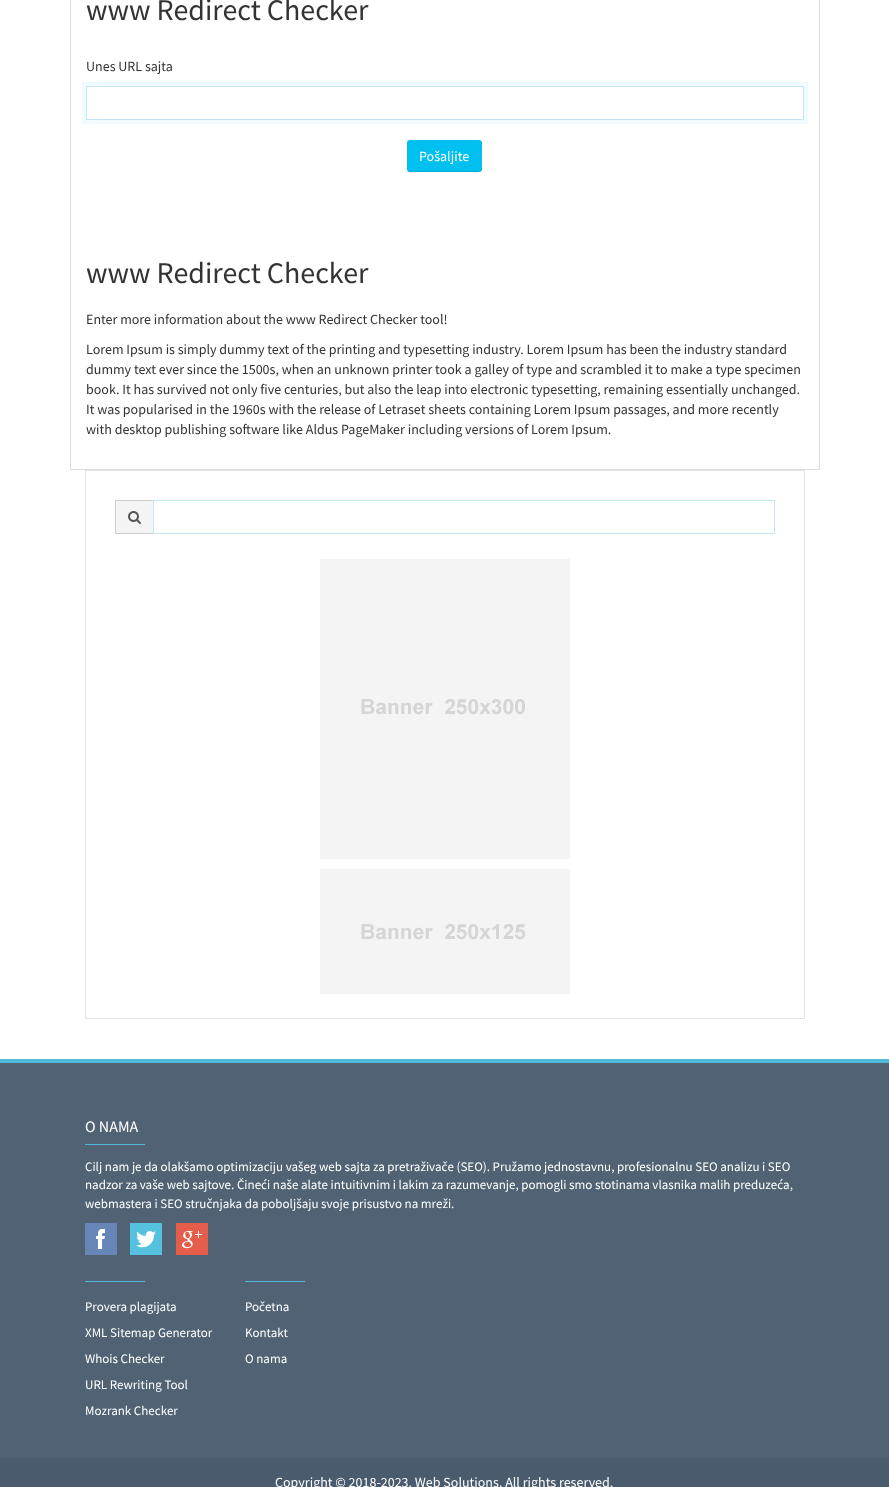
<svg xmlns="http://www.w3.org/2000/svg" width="889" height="1487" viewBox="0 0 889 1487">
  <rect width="100%" height="100%" fill="rgb(255,255,255)"/>
  <rect x="70.5" y="-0.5" width="749" height="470" fill="none" stroke="rgb(221,221,221)"/>
  <text x="86" y="20" font-family="Source Sans Pro" font-size="30" fill="rgb(51,51,51)">www Redirect Checker</text>
  <text x="86" y="71" font-family="Source Sans Pro" font-size="14" fill="rgb(51,51,51)">Unes URL sajta</text>
  <rect x="84" y="84" width="722" height="38" fill="none" stroke="rgb(240,251,255)" stroke-width="4"/>
  <rect x="86.5" y="86.5" width="717" height="33" fill="none" stroke="rgb(195,232,244)"/>
  <rect x="407" y="140" width="75" height="32" rx="3" fill="rgb(0,192,239)"/>
  <path d="M407 168C407 175 417 172 422 172H468C472 172 482 175 482 168C482 170 481 171 479 171H410C408 171 407 170 407 168Z" fill="rgba(0,0,0,0.09)"/>
  <text x="419" y="161" font-family="Source Sans Pro" font-size="14" fill="rgb(255,255,255)">Pošaljite</text>
  <text x="86" y="283" font-family="Source Sans Pro" font-size="30" fill="rgb(51,51,51)">www Redirect Checker</text>
  <g font-family="Source Sans Pro" font-size="14" fill="rgb(51,51,51)">
    <text x="86" y="324">Enter more information about the www Redirect Checker tool!</text>
    <text>
      <tspan x="86" y="354">Lorem Ipsum is simply dummy text of the printing and typesetting industry. Lorem Ipsum has been the industry standard</tspan>
      <tspan x="86" y="374">dummy text ever since the 1500s, when an unknown printer took a galley of type and scrambled it to make a type specimen</tspan>
      <tspan x="86" y="394">book. It has survived not only five centuries, but also the leap into electronic typesetting, remaining essentially unchanged.</tspan>
      <tspan x="86" y="414">It was popularised in the 1960s with the release of Letraset sheets containing Lorem Ipsum passages, and more recently</tspan>
      <tspan x="86" y="434">with desktop publishing software like Aldus PageMaker including versions of Lorem Ipsum.</tspan>
    </text>
  </g>
  <rect x="85.5" y="470.5" width="719" height="548" fill="none" stroke="rgb(227,227,227)"/>
  <rect x="116" y="501" width="37" height="32" fill="rgb(244,244,244)"/>
  <rect x="115" y="500" width="38" height="1" fill="rgb(204,204,204)"/>
  <rect x="115" y="533" width="38" height="1" fill="rgb(204,204,204)"/>
  <rect x="115" y="500" width="1" height="34" fill="rgb(204,204,204)"/>
  <image x="128" y="511" width="13" height="13" href="pic1.png"/>
  <rect x="153.5" y="500.5" width="621" height="33" fill="none" stroke="rgb(195,232,244)"/>
  <image x="320" y="559" width="250" height="300" href="pic2.png"/>
  <image x="320" y="869" width="250" height="125" href="pic3.png"/>
  <rect x="0" y="1458" width="889" height="29" fill="rgb(73,91,108)"/>
  <rect x="0" y="1059" width="889" height="4" fill="rgb(81,186,214)"/>
  <rect x="0" y="1063" width="889" height="395" fill="rgb(80,98,115)"/>
  <text x="85" y="1132" font-family="Source Sans Pro" font-size="16" fill="rgb(255,255,255)">O NAMA</text>
  <rect x="85" y="1144" width="60" height="1" fill="rgb(81,186,214)"/>
  <g font-family="Source Sans Pro" font-size="13" fill="rgb(255,255,255)">
    <text>
      <tspan x="85" y="1171">Cilj nam je da olakšamo optimizaciju vašeg web sajta za pretraživače (SEO). Pružamo jednostavnu, profesionalnu SEO analizu i SEO</tspan>
      <tspan x="85" y="1189">nadzor za vaše web sajtove. Čineći naše alate intuitivnim i lakim za razumevanje, pomogli smo stotinama vlasnika malih preduzeća,</tspan>
      <tspan x="85" y="1208">webmastera i SEO stručnjaka da poboljšaju svoje prisustvo na mreži.</tspan>
    </text>
  </g>
  <rect x="85" y="1223" width="32" height="32" fill="rgb(102,134,183)"/>
  <image x="96" y="1229" width="9" height="20" href="pic4.png"/>
  <rect x="130" y="1223" width="32" height="32" fill="rgb(84,193,222)"/>
  <image x="136" y="1231" width="20" height="17" href="pic5.png"/>
  <rect x="176" y="1223" width="32" height="32" fill="rgb(229,94,76)"/>
  <image x="182" y="1231" width="20" height="18" href="pic6.png"/>
  <rect x="85" y="1281" width="60" height="1" fill="rgb(81,186,214)"/>
  <g font-family="Source Sans Pro" font-size="13" fill="rgb(255,255,255)">
    <text x="85" y="1311">Provera plagijata</text>
    <text x="85" y="1337">XML Sitemap Generator</text>
    <text x="85" y="1363">Whois Checker</text>
    <text x="85" y="1389">URL Rewriting Tool</text>
    <text x="85" y="1415">Mozrank Checker</text>
  </g>
  <rect x="245" y="1281" width="60" height="1" fill="rgb(81,186,214)"/>
  <g font-family="Source Sans Pro" font-size="13" fill="rgb(255,255,255)">
    <text x="245" y="1311">Početna</text>
    <text x="245" y="1337">Kontakt</text>
    <text x="245" y="1363">O nama</text>
  </g>
  <text x="275" y="1487" font-family="Source Sans Pro" font-size="14" fill="rgb(255,255,255)">Copyright © 2018-2023. Web Solutions. All rights reserved.</text>
</svg>
